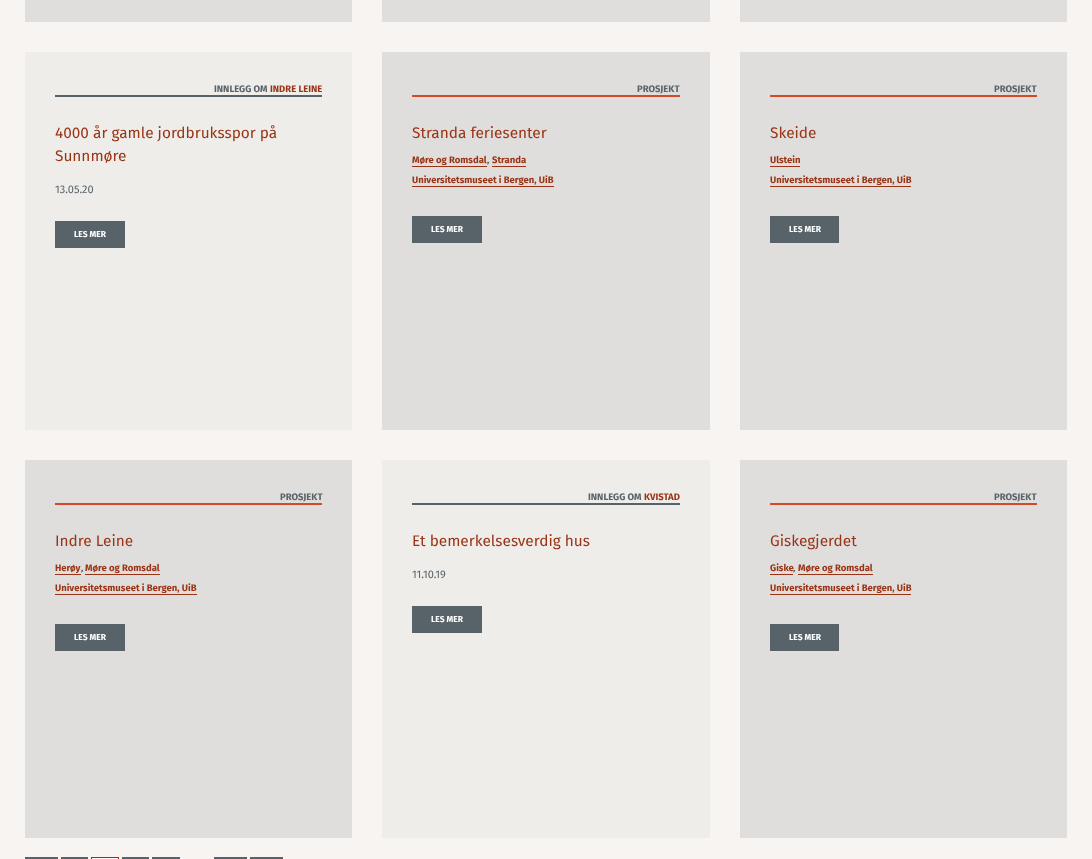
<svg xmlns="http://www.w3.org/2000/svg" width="1092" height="859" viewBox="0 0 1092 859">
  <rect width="100%" height="100%" fill="rgb(247,244,241)"/>
  <rect x="25" y="0" width="327" height="22" fill="rgb(223,222,221)"/>
  <rect x="382" y="0" width="328" height="22" fill="rgb(223,222,221)"/>
  <rect x="740" y="0" width="327" height="22" fill="rgb(223,222,221)"/>
  <rect x="25" y="52" width="327" height="378" fill="rgb(239,237,234)"/>
  <rect x="55" y="95" width="267" height="2" fill="rgb(88,99,105)"/>
  <text x="214" y="92" font-family="Fira Sans" font-size="9.5" font-weight="bold" fill="rgb(88,99,105)">INNLEGG OM</text>
  <text x="270" y="92" font-family="Fira Sans" font-size="9.5" font-weight="bold" fill="rgb(153,52,22)">INDRE LEINE</text>
  <g font-family="Fira Sans" font-size="15.4" fill="rgb(153,52,22)">
    <text>
      <tspan x="55" y="138">4000 år gamle jordbruksspor på</tspan>
      <tspan x="55" y="161">Sunnmøre</tspan>
    </text>
  </g>
  <text x="55" y="193" font-family="Fira Sans" font-size="11" fill="rgb(88,99,105)">13.05.20</text>
  <rect x="55" y="221" width="70" height="27" fill="rgb(88,99,105)"/>
  <text x="74" y="237" font-family="Fira Sans" font-size="8.5" font-weight="bold" fill="rgb(255,255,255)">LES MER</text>
  <rect x="382" y="52" width="328" height="378" fill="rgb(224,222,220)"/>
  <rect x="412" y="95" width="268" height="2" fill="rgb(210,74,39)"/>
  <text x="637" y="92" font-family="Fira Sans" font-size="9.5" font-weight="bold" fill="rgb(88,99,105)">PROSJEKT</text>
  <text x="412" y="138" font-family="Fira Sans" font-size="15.4" fill="rgb(153,52,22)">Stranda feriesenter</text>
  <g font-family="Fira Sans" font-size="9.5" font-weight="bold" fill="rgb(153,52,22)">
    <text x="412" y="163">Møre og Romsdal</text>
    <text x="492" y="163">Stranda</text>
  </g>
  <text x="487" y="163" font-family="Fira Sans" font-size="9.5" fill="rgb(51,51,51)">,</text>
  <rect x="412" y="166" width="75" height="1" fill="rgb(153,52,22)"/>
  <rect x="492" y="166" width="34" height="1" fill="rgb(153,52,22)"/>
  <text x="412" y="183" font-family="Fira Sans" font-size="9.5" font-weight="bold" fill="rgb(153,52,22)">Universitetsmuseet i Bergen, UiB</text>
  <rect x="412" y="186" width="142" height="1" fill="rgb(153,52,22)"/>
  <rect x="412" y="216" width="70" height="27" fill="rgb(88,99,105)"/>
  <text x="431" y="232" font-family="Fira Sans" font-size="8.5" font-weight="bold" fill="rgb(255,255,255)">LES MER</text>
  <rect x="740" y="52" width="327" height="378" fill="rgb(224,222,220)"/>
  <rect x="770" y="95" width="267" height="2" fill="rgb(210,74,39)"/>
  <text x="994" y="92" font-family="Fira Sans" font-size="9.5" font-weight="bold" fill="rgb(88,99,105)">PROSJEKT</text>
  <text x="770" y="138" font-family="Fira Sans" font-size="15.4" fill="rgb(153,52,22)">Skeide</text>
  <text x="770" y="163" font-family="Fira Sans" font-size="9.5" font-weight="bold" fill="rgb(153,52,22)">Ulstein</text>
  <rect x="770" y="166" width="30" height="1" fill="rgb(153,52,22)"/>
  <text x="770" y="183" font-family="Fira Sans" font-size="9.5" font-weight="bold" fill="rgb(153,52,22)">Universitetsmuseet i Bergen, UiB</text>
  <rect x="770" y="186" width="141" height="1" fill="rgb(153,52,22)"/>
  <rect x="770" y="216" width="69" height="27" fill="rgb(88,99,105)"/>
  <text x="789" y="232" font-family="Fira Sans" font-size="8.5" font-weight="bold" fill="rgb(255,255,255)">LES MER</text>
  <rect x="25" y="460" width="327" height="378" fill="rgb(224,222,220)"/>
  <rect x="55" y="503" width="267" height="2" fill="rgb(210,74,39)"/>
  <text x="280" y="500" font-family="Fira Sans" font-size="9.5" font-weight="bold" fill="rgb(88,99,105)">PROSJEKT</text>
  <text x="55" y="546" font-family="Fira Sans" font-size="15.4" fill="rgb(153,52,22)">Indre Leine</text>
  <text x="55" y="571" font-family="Fira Sans" font-size="9.5" font-weight="bold" fill="rgb(153,52,22)">Herøy</text>
  <text x="81" y="571" font-family="Fira Sans" font-size="9.5" fill="rgb(51,51,51)">,</text>
  <rect x="55" y="574" width="26" height="1" fill="rgb(153,52,22)"/>
  <rect x="85" y="574" width="75" height="1" fill="rgb(153,52,22)"/>
  <g font-family="Fira Sans" font-size="9.5" font-weight="bold" fill="rgb(153,52,22)">
    <text x="85" y="571">Møre og Romsdal</text>
    <text x="55" y="591">Universitetsmuseet i Bergen, UiB</text>
  </g>
  <rect x="55" y="594" width="142" height="1" fill="rgb(153,52,22)"/>
  <rect x="55" y="624" width="70" height="27" fill="rgb(88,99,105)"/>
  <text x="74" y="640" font-family="Fira Sans" font-size="8.5" font-weight="bold" fill="rgb(255,255,255)">LES MER</text>
  <rect x="382" y="460" width="328" height="378" fill="rgb(239,237,234)"/>
  <rect x="412" y="503" width="268" height="2" fill="rgb(88,99,105)"/>
  <text x="588" y="500" font-family="Fira Sans" font-size="9.5" font-weight="bold" fill="rgb(88,99,105)">INNLEGG OM</text>
  <text x="644" y="500" font-family="Fira Sans" font-size="9.5" font-weight="bold" fill="rgb(153,52,22)">KVISTAD</text>
  <text x="412" y="546" font-family="Fira Sans" font-size="15.4" fill="rgb(153,52,22)">Et bemerkelsesverdig hus</text>
  <text x="412" y="578" font-family="Fira Sans" font-size="11" fill="rgb(88,99,105)">11.10.19</text>
  <rect x="412" y="606" width="70" height="27" fill="rgb(88,99,105)"/>
  <text x="431" y="622" font-family="Fira Sans" font-size="8.5" font-weight="bold" fill="rgb(255,255,255)">LES MER</text>
  <rect x="740" y="460" width="327" height="378" fill="rgb(224,222,220)"/>
  <rect x="770" y="503" width="267" height="2" fill="rgb(210,74,39)"/>
  <text x="994" y="500" font-family="Fira Sans" font-size="9.5" font-weight="bold" fill="rgb(88,99,105)">PROSJEKT</text>
  <text x="770" y="546" font-family="Fira Sans" font-size="15.4" fill="rgb(153,52,22)">Giskegjerdet</text>
  <text x="770" y="571" font-family="Fira Sans" font-size="9.5" font-weight="bold" fill="rgb(153,52,22)">Giske</text>
  <text x="793" y="571" font-family="Fira Sans" font-size="9.5" fill="rgb(51,51,51)">,</text>
  <rect x="770" y="574" width="23" height="1" fill="rgb(153,52,22)"/>
  <rect x="798" y="574" width="75" height="1" fill="rgb(153,52,22)"/>
  <g font-family="Fira Sans" font-size="9.5" font-weight="bold" fill="rgb(153,52,22)">
    <text x="798" y="571">Møre og Romsdal</text>
    <text x="770" y="591">Universitetsmuseet i Bergen, UiB</text>
  </g>
  <rect x="770" y="594" width="141" height="1" fill="rgb(153,52,22)"/>
  <rect x="770" y="624" width="69" height="27" fill="rgb(88,99,105)"/>
  <text x="789" y="640" font-family="Fira Sans" font-size="8.5" font-weight="bold" fill="rgb(255,255,255)">LES MER</text>
  <rect x="25" y="857" width="33" height="2" fill="rgb(88,99,105)"/>
  <rect x="61" y="857" width="27" height="2" fill="rgb(88,99,105)"/>
  <rect x="91.5" y="857.5" width="27" height="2" fill="none" stroke="rgb(153,52,22)"/>
  <rect x="122" y="857" width="27" height="2" fill="rgb(88,99,105)"/>
  <rect x="152" y="857" width="28" height="2" fill="rgb(88,99,105)"/>
  <rect x="214" y="857" width="33" height="2" fill="rgb(88,99,105)"/>
  <rect x="250" y="857" width="33" height="2" fill="rgb(88,99,105)"/>
</svg>
